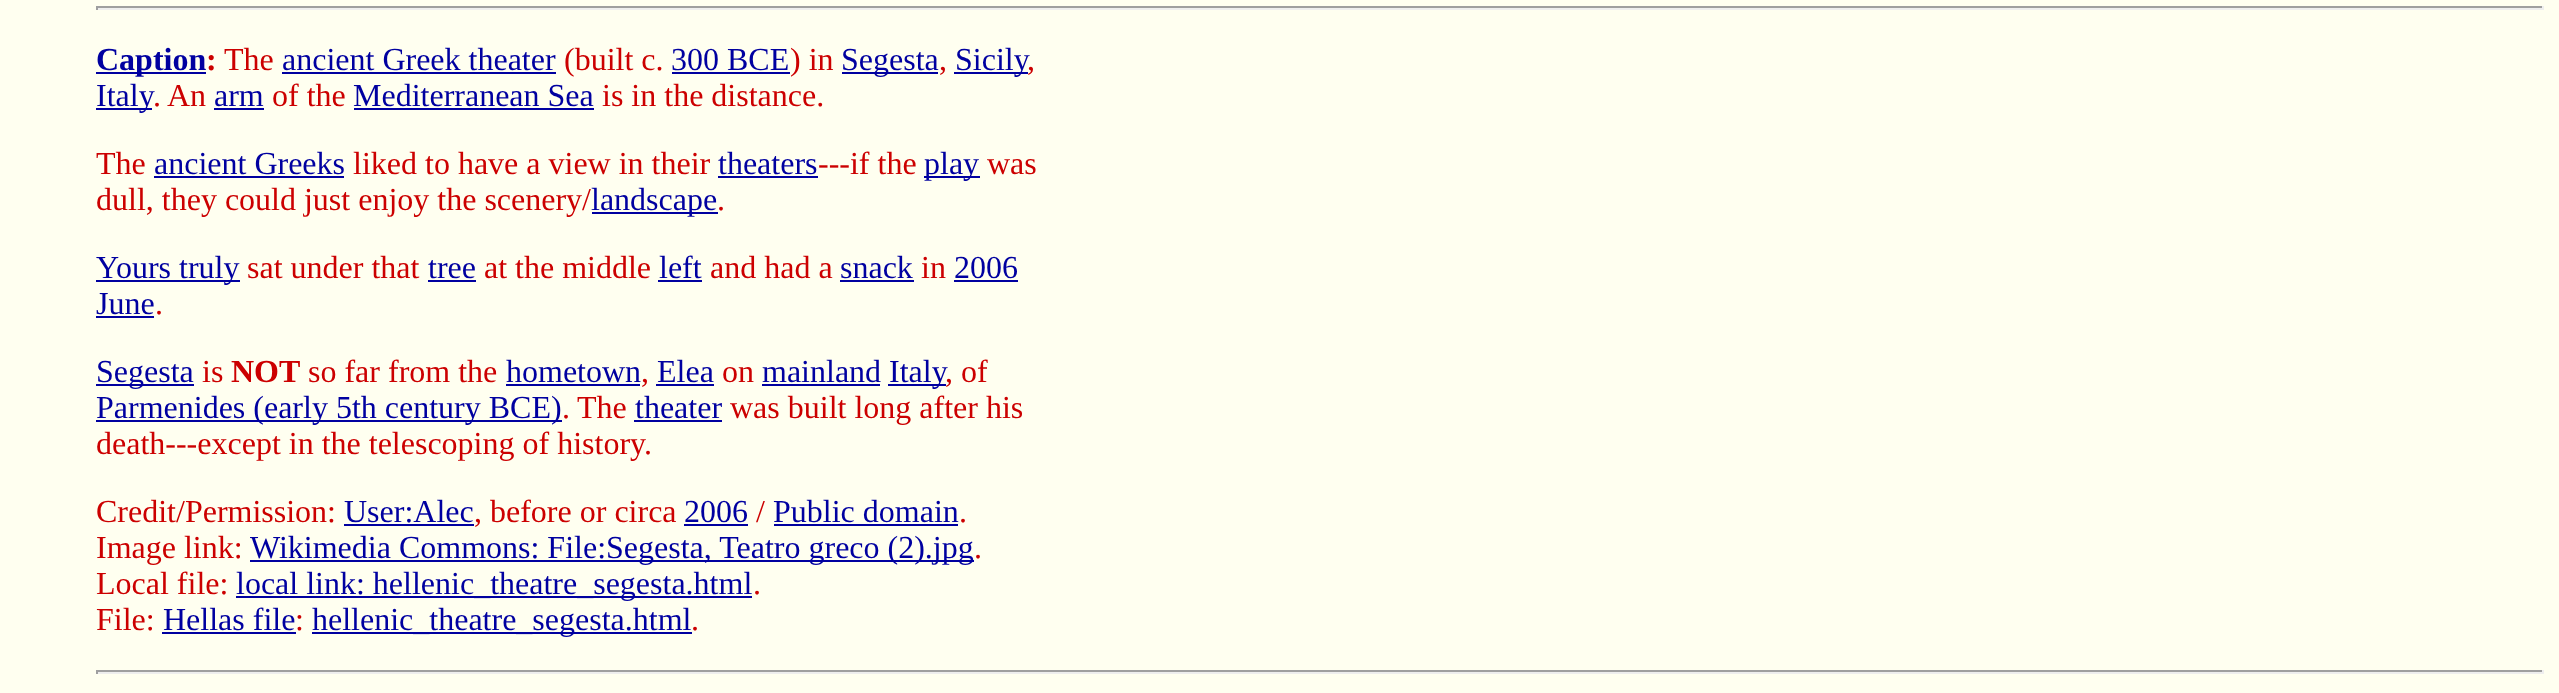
<svg xmlns="http://www.w3.org/2000/svg" width="2559" height="693" viewBox="0 0 2559 693">
  <rect width="100%" height="100%" fill="rgb(255,255,240)"/>
  <rect x="96" y="6" width="2448" height="2" fill="rgb(159,159,159)"/>
  <rect x="2542" y="6" width="2" height="4" fill="rgb(238,238,238)"/>
  <rect x="96" y="8" width="2448" height="2" fill="rgb(238,238,238)"/>
  <rect x="96" y="6" width="2" height="4" fill="rgb(159,159,159)"/>
  <rect x="96" y="72" width="110" height="2" fill="rgb(0,0,160)"/>
  <text x="96" y="70" font-family="Liberation Serif" font-size="32" font-weight="bold" fill="rgb(0,0,160)">Caption</text>
  <text x="206" y="70" font-family="Liberation Serif" font-size="32" font-weight="bold" fill="rgb(204,0,0)">:</text>
  <text x="224" y="70" font-family="Liberation Serif" font-size="32" fill="rgb(204,0,0)">The</text>
  <text x="282" y="70" font-family="Liberation Serif" font-size="32" fill="rgb(0,0,160)">ancient Greek theater</text>
  <rect x="282" y="72" width="274" height="2" fill="rgb(0,0,160)"/>
  <text x="564" y="70" font-family="Liberation Serif" font-size="32" fill="rgb(204,0,0)">(built c.</text>
  <text x="671" y="70" font-family="Liberation Serif" font-size="32" fill="rgb(0,0,160)">300 BCE</text>
  <rect x="672" y="72" width="118" height="2" fill="rgb(0,0,160)"/>
  <text x="790" y="70" font-family="Liberation Serif" font-size="32" fill="rgb(204,0,0)">) in</text>
  <rect x="842" y="72" width="96" height="2" fill="rgb(0,0,160)"/>
  <text x="841" y="70" font-family="Liberation Serif" font-size="32" fill="rgb(0,0,160)">Segesta</text>
  <text x="939" y="70" font-family="Liberation Serif" font-size="32" fill="rgb(204,0,0)">,</text>
  <rect x="954" y="72" width="74" height="2" fill="rgb(0,0,160)"/>
  <text x="955" y="70" font-family="Liberation Serif" font-size="32" fill="rgb(0,0,160)">Sicily</text>
  <text x="1027" y="70" font-family="Liberation Serif" font-size="32" fill="rgb(204,0,0)">,</text>
  <rect x="96" y="108" width="56" height="2" fill="rgb(0,0,160)"/>
  <text x="96" y="106" font-family="Liberation Serif" font-size="32" fill="rgb(0,0,160)">Italy</text>
  <g font-family="Liberation Serif" font-size="32" fill="rgb(204,0,0)">
    <text x="153" y="106">.</text>
    <text x="167" y="106">An</text>
  </g>
  <text x="214" y="106" font-family="Liberation Serif" font-size="32" fill="rgb(0,0,160)">arm</text>
  <rect x="214" y="108" width="50" height="2" fill="rgb(0,0,160)"/>
  <text x="272" y="106" font-family="Liberation Serif" font-size="32" fill="rgb(204,0,0)">of the</text>
  <text x="353" y="106" font-family="Liberation Serif" font-size="32" fill="rgb(0,0,160)">Mediterranean Sea</text>
  <rect x="354" y="108" width="240" height="2" fill="rgb(0,0,160)"/>
  <g font-family="Liberation Serif" font-size="32" fill="rgb(204,0,0)">
    <text x="602" y="106">is in the distance.</text>
    <text x="96" y="174">The</text>
  </g>
  <text x="154" y="174" font-family="Liberation Serif" font-size="32" fill="rgb(0,0,160)">ancient Greeks</text>
  <rect x="154" y="176" width="190" height="2" fill="rgb(0,0,160)"/>
  <text x="353" y="174" font-family="Liberation Serif" font-size="32" fill="rgb(204,0,0)">liked to have a view in their</text>
  <text x="718" y="174" font-family="Liberation Serif" font-size="32" fill="rgb(0,0,160)">theaters</text>
  <rect x="718" y="176" width="100" height="2" fill="rgb(0,0,160)"/>
  <text x="818" y="174" font-family="Liberation Serif" font-size="32" fill="rgb(204,0,0)">---if the</text>
  <rect x="924" y="176" width="56" height="2" fill="rgb(0,0,160)"/>
  <text x="924" y="174" font-family="Liberation Serif" font-size="32" fill="rgb(0,0,160)">play</text>
  <g font-family="Liberation Serif" font-size="32" fill="rgb(204,0,0)">
    <text x="987" y="174">was</text>
    <text x="96" y="210">dull, they could just enjoy the scenery/</text>
  </g>
  <rect x="592" y="212" width="126" height="2" fill="rgb(0,0,160)"/>
  <text x="591" y="210" font-family="Liberation Serif" font-size="32" fill="rgb(0,0,160)">landscape</text>
  <text x="717" y="210" font-family="Liberation Serif" font-size="32" fill="rgb(204,0,0)">.</text>
  <rect x="96" y="280" width="144" height="2" fill="rgb(0,0,160)"/>
  <text x="96" y="278" font-family="Liberation Serif" font-size="32" fill="rgb(0,0,160)">Yours truly</text>
  <text x="247" y="278" font-family="Liberation Serif" font-size="32" fill="rgb(204,0,0)">sat under that</text>
  <text x="428" y="278" font-family="Liberation Serif" font-size="32" fill="rgb(0,0,160)">tree</text>
  <rect x="428" y="280" width="48" height="2" fill="rgb(0,0,160)"/>
  <text x="484" y="278" font-family="Liberation Serif" font-size="32" fill="rgb(204,0,0)">at the middle</text>
  <text x="659" y="278" font-family="Liberation Serif" font-size="32" fill="rgb(0,0,160)">left</text>
  <rect x="658" y="280" width="44" height="2" fill="rgb(0,0,160)"/>
  <text x="710" y="278" font-family="Liberation Serif" font-size="32" fill="rgb(204,0,0)">and had a</text>
  <text x="840" y="278" font-family="Liberation Serif" font-size="32" fill="rgb(0,0,160)">snack</text>
  <rect x="840" y="280" width="74" height="2" fill="rgb(0,0,160)"/>
  <text x="921" y="278" font-family="Liberation Serif" font-size="32" fill="rgb(204,0,0)">in</text>
  <text x="954" y="278" font-family="Liberation Serif" font-size="32" fill="rgb(0,0,160)">2006</text>
  <rect x="954" y="280" width="64" height="2" fill="rgb(0,0,160)"/>
  <text x="96" y="314" font-family="Liberation Serif" font-size="32" fill="rgb(0,0,160)">June</text>
  <rect x="96" y="316" width="58" height="2" fill="rgb(0,0,160)"/>
  <text x="155" y="314" font-family="Liberation Serif" font-size="32" fill="rgb(204,0,0)">.</text>
  <rect x="96" y="384" width="98" height="2" fill="rgb(0,0,160)"/>
  <text x="96" y="382" font-family="Liberation Serif" font-size="32" fill="rgb(0,0,160)">Segesta</text>
  <text x="202" y="382" font-family="Liberation Serif" font-size="32" fill="rgb(204,0,0)">is</text>
  <text x="231" y="382" font-family="Liberation Serif" font-size="32" font-weight="bold" fill="rgb(204,0,0)">NOT</text>
  <text x="308" y="382" font-family="Liberation Serif" font-size="32" fill="rgb(204,0,0)">so far from the</text>
  <text x="506" y="382" font-family="Liberation Serif" font-size="32" fill="rgb(0,0,160)">hometown</text>
  <rect x="506" y="384" width="134" height="2" fill="rgb(0,0,160)"/>
  <text x="641" y="382" font-family="Liberation Serif" font-size="32" fill="rgb(204,0,0)">,</text>
  <text x="657" y="382" font-family="Liberation Serif" font-size="32" fill="rgb(0,0,160)">Elea</text>
  <rect x="656" y="384" width="58" height="2" fill="rgb(0,0,160)"/>
  <text x="722" y="382" font-family="Liberation Serif" font-size="32" fill="rgb(204,0,0)">on</text>
  <text x="762" y="382" font-family="Liberation Serif" font-size="32" fill="rgb(0,0,160)">mainland</text>
  <rect x="762" y="384" width="118" height="2" fill="rgb(0,0,160)"/>
  <rect x="888" y="384" width="58" height="2" fill="rgb(0,0,160)"/>
  <text x="889" y="382" font-family="Liberation Serif" font-size="32" fill="rgb(0,0,160)">Italy</text>
  <text x="945" y="382" font-family="Liberation Serif" font-size="32" fill="rgb(204,0,0)">, of</text>
  <rect x="96" y="420" width="466" height="2" fill="rgb(0,0,160)"/>
  <text x="96" y="418" font-family="Liberation Serif" font-size="32" fill="rgb(0,0,160)">Parmenides (early 5th century BCE)</text>
  <g font-family="Liberation Serif" font-size="32" fill="rgb(204,0,0)">
    <text x="562" y="418">.</text>
    <text x="577" y="418">The</text>
  </g>
  <text x="635" y="418" font-family="Liberation Serif" font-size="32" fill="rgb(0,0,160)">theater</text>
  <rect x="634" y="420" width="88" height="2" fill="rgb(0,0,160)"/>
  <g font-family="Liberation Serif" font-size="32" fill="rgb(204,0,0)">
    <text x="730" y="418">was built long after his</text>
    <text x="96" y="454">death---except in the telescoping of history.</text>
    <text x="96" y="522">Credit/Permission:</text>
  </g>
  <text x="344" y="522" font-family="Liberation Serif" font-size="32" fill="rgb(0,0,160)">User:Alec</text>
  <rect x="344" y="524" width="130" height="2" fill="rgb(0,0,160)"/>
  <text x="474" y="522" font-family="Liberation Serif" font-size="32" fill="rgb(204,0,0)">, before or circa</text>
  <text x="684" y="522" font-family="Liberation Serif" font-size="32" fill="rgb(0,0,160)">2006</text>
  <rect x="684" y="524" width="64" height="2" fill="rgb(0,0,160)"/>
  <text x="756" y="522" font-family="Liberation Serif" font-size="32" fill="rgb(204,0,0)">/</text>
  <text x="773" y="522" font-family="Liberation Serif" font-size="32" fill="rgb(0,0,160)">Public domain</text>
  <rect x="774" y="524" width="184" height="2" fill="rgb(0,0,160)"/>
  <g font-family="Liberation Serif" font-size="32" fill="rgb(204,0,0)">
    <text x="959" y="522">.</text>
    <text x="96" y="558">Image link:</text>
  </g>
  <rect x="250" y="560" width="724" height="2" fill="rgb(0,0,160)"/>
  <text x="250" y="558" font-family="Liberation Serif" font-size="32" fill="rgb(0,0,160)">Wikimedia Commons: File:Segesta, Teatro greco (2).jpg</text>
  <g font-family="Liberation Serif" font-size="32" fill="rgb(204,0,0)">
    <text x="974" y="558">.</text>
    <text x="96" y="594">Local file:</text>
  </g>
  <rect x="236" y="596" width="516" height="2" fill="rgb(0,0,160)"/>
  <text x="236" y="594" font-family="Liberation Serif" font-size="32" fill="rgb(0,0,160)">local link: hellenic_theatre_segesta.html</text>
  <g font-family="Liberation Serif" font-size="32" fill="rgb(204,0,0)">
    <text x="753" y="594">.</text>
    <text x="96" y="630">File:</text>
  </g>
  <text x="163" y="630" font-family="Liberation Serif" font-size="32" fill="rgb(0,0,160)">Hellas file</text>
  <rect x="162" y="632" width="134" height="2" fill="rgb(0,0,160)"/>
  <text x="295" y="630" font-family="Liberation Serif" font-size="32" fill="rgb(204,0,0)">:</text>
  <rect x="312" y="632" width="380" height="2" fill="rgb(0,0,160)"/>
  <text x="312" y="630" font-family="Liberation Serif" font-size="32" fill="rgb(0,0,160)">hellenic_theatre_segesta.html</text>
  <text x="691" y="630" font-family="Liberation Serif" font-size="32" fill="rgb(204,0,0)">.</text>
  <rect x="96" y="670" width="2448" height="2" fill="rgb(159,159,159)"/>
  <rect x="2542" y="670" width="2" height="4" fill="rgb(238,238,238)"/>
  <rect x="96" y="672" width="2448" height="2" fill="rgb(238,238,238)"/>
  <rect x="96" y="670" width="2" height="4" fill="rgb(159,159,159)"/>
</svg>
